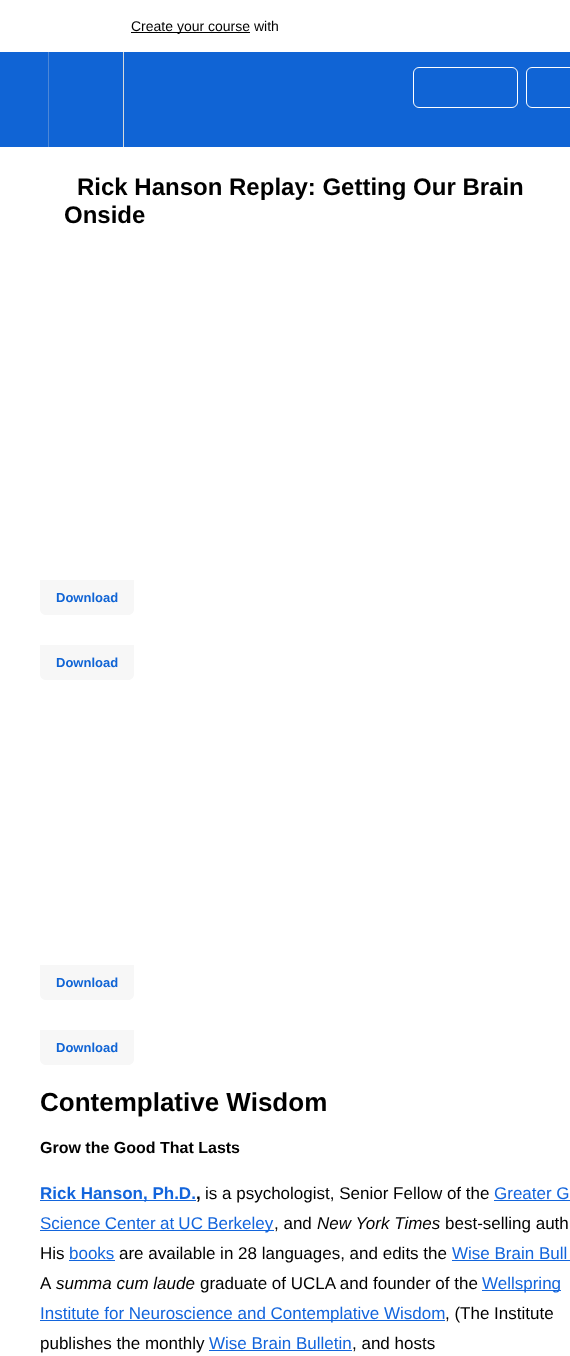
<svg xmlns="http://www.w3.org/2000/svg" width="570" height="1356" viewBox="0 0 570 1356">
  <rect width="100%" height="100%" fill="rgb(255,255,255)"/>
  <rect x="0" y="52" width="570" height="95" fill="rgb(16,100,213)"/>
  <rect x="131" y="32" width="119" height="1" fill="rgb(0,0,0)"/>
  <text x="131" y="31" font-family="Liberation Sans" font-size="14" fill="rgb(0,0,0)">Create your course with</text>
  <rect x="123" y="52" width="1" height="95" fill="rgb(215,218,219)"/>
  <rect x="48" y="52" width="1" height="95" fill="rgb(76,135,215)"/>
  <rect x="413.5" y="67.5" width="104" height="40" rx="5.5" fill="none" stroke="rgb(255,255,255)"/>
  <rect x="526.5" y="67.5" width="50" height="40" rx="5.5" fill="none" stroke="rgb(255,255,255)"/>
  <g font-family="Liberation Sans" font-size="24" font-weight="bold" fill="rgb(0,0,0)">
    <text x="77" y="195">Rick Hanson Replay: Getting Our Brain</text>
    <text x="64" y="223">Onside</text>
  </g>
  <path d="M40 580H134V609C134 612.5 131.5 615 128 615H46C42.5 615 40 612.5 40 609Z" fill="rgb(247,247,247)"/>
  <text x="56" y="602" font-family="Liberation Sans" font-size="13" font-weight="bold" fill="rgb(16,100,213)">Download</text>
  <path d="M40 645H134V674C134 677.5 131.5 680 128 680H46C42.5 680 40 677.5 40 674Z" fill="rgb(247,247,247)"/>
  <text x="56" y="667" font-family="Liberation Sans" font-size="13" font-weight="bold" fill="rgb(16,100,213)">Download</text>
  <path d="M40 965H134V994C134 997.5 131.5 1000 128 1000H46C42.5 1000 40 997.5 40 994Z" fill="rgb(247,247,247)"/>
  <text x="56" y="987" font-family="Liberation Sans" font-size="13" font-weight="bold" fill="rgb(16,100,213)">Download</text>
  <path d="M40 1030H134V1059C134 1062.5 131.5 1065 128 1065H46C42.5 1065 40 1062.5 40 1059Z" fill="rgb(247,247,247)"/>
  <text x="56" y="1052" font-family="Liberation Sans" font-size="13" font-weight="bold" fill="rgb(16,100,213)">Download</text>
  <text x="40" y="1111" font-family="Liberation Sans" font-size="26" font-weight="bold" fill="rgb(0,0,0)">Contemplative Wisdom</text>
  <text x="40" y="1153" font-family="Liberation Sans" font-size="16" font-weight="bold" fill="rgb(0,0,0)">Grow the Good That Lasts</text>
  <rect x="40" y="1200" width="156" height="1" fill="rgb(19,101,220)"/>
  <text x="40" y="1199" font-family="Liberation Sans" font-size="17" font-weight="bold" fill="rgb(19,101,220)">Rick Hanson, Ph.D.</text>
  <text x="196" y="1199" font-family="Liberation Sans" font-size="17" font-weight="bold" fill="rgb(0,0,0)">,</text>
  <text x="205" y="1199" font-family="Liberation Sans" font-size="17" fill="rgb(0,0,0)">is a psychologist, Senior Fellow of the</text>
  <text x="494" y="1199" font-family="Liberation Sans" font-size="17" fill="rgb(19,101,220)">Greater G</text>
  <rect x="494" y="1200" width="76" height="1" fill="rgb(19,101,220)"/>
  <rect x="40" y="1230" width="234" height="1" fill="rgb(19,101,220)"/>
  <text x="40" y="1229" word-spacing="-0.5" font-family="Liberation Sans" font-size="17" fill="rgb(19,101,220)">Science Center at UC Berkeley</text>
  <text x="274" y="1229" font-family="Liberation Sans" font-size="17" fill="rgb(0,0,0)">, and</text>
  <text x="317" y="1229" font-family="Liberation Sans" font-size="17" font-style="italic" fill="rgb(0,0,0)">New York Times</text>
  <g font-family="Liberation Sans" font-size="17" fill="rgb(0,0,0)">
    <text x="445" y="1229">best-selling auth</text>
    <text x="40" y="1259">His</text>
  </g>
  <text x="69" y="1259" font-family="Liberation Sans" font-size="17" fill="rgb(19,101,220)">books</text>
  <rect x="69" y="1260" width="46" height="1" fill="rgb(19,101,220)"/>
  <text x="119" y="1259" font-family="Liberation Sans" font-size="17" fill="rgb(0,0,0)">are available in 28 languages, and edits the</text>
  <text x="452" y="1259" font-family="Liberation Sans" font-size="17" fill="rgb(19,101,220)">Wise Brain Bull</text>
  <rect x="452" y="1260" width="118" height="1" fill="rgb(19,101,220)"/>
  <text x="40" y="1289" font-family="Liberation Sans" font-size="17" fill="rgb(0,0,0)">A</text>
  <text x="56" y="1289" font-family="Liberation Sans" font-size="17" font-style="italic" fill="rgb(0,0,0)">summa cum laude</text>
  <text x="200" y="1289" font-family="Liberation Sans" font-size="17" fill="rgb(0,0,0)">graduate of UCLA and founder of the</text>
  <rect x="482" y="1290" width="79" height="1" fill="rgb(19,101,220)"/>
  <text x="482" y="1289" font-family="Liberation Sans" font-size="17" fill="rgb(19,101,220)">Wellspring</text>
  <rect x="40" y="1320" width="405" height="1" fill="rgb(19,101,220)"/>
  <text x="40" y="1319" font-family="Liberation Sans" font-size="17" fill="rgb(19,101,220)">Institute for Neuroscience and Contemplative Wisdom</text>
  <g font-family="Liberation Sans" font-size="17" fill="rgb(0,0,0)">
    <text x="445" y="1319">, (The Institute</text>
    <text x="40" y="1349">publishes the monthly</text>
  </g>
  <text x="209" y="1349" font-family="Liberation Sans" font-size="17" fill="rgb(19,101,220)">Wise Brain Bulletin</text>
  <rect x="209" y="1350" width="143" height="1" fill="rgb(19,101,220)"/>
  <text x="352" y="1349" font-family="Liberation Sans" font-size="17" fill="rgb(0,0,0)">, and hosts</text>
</svg>
